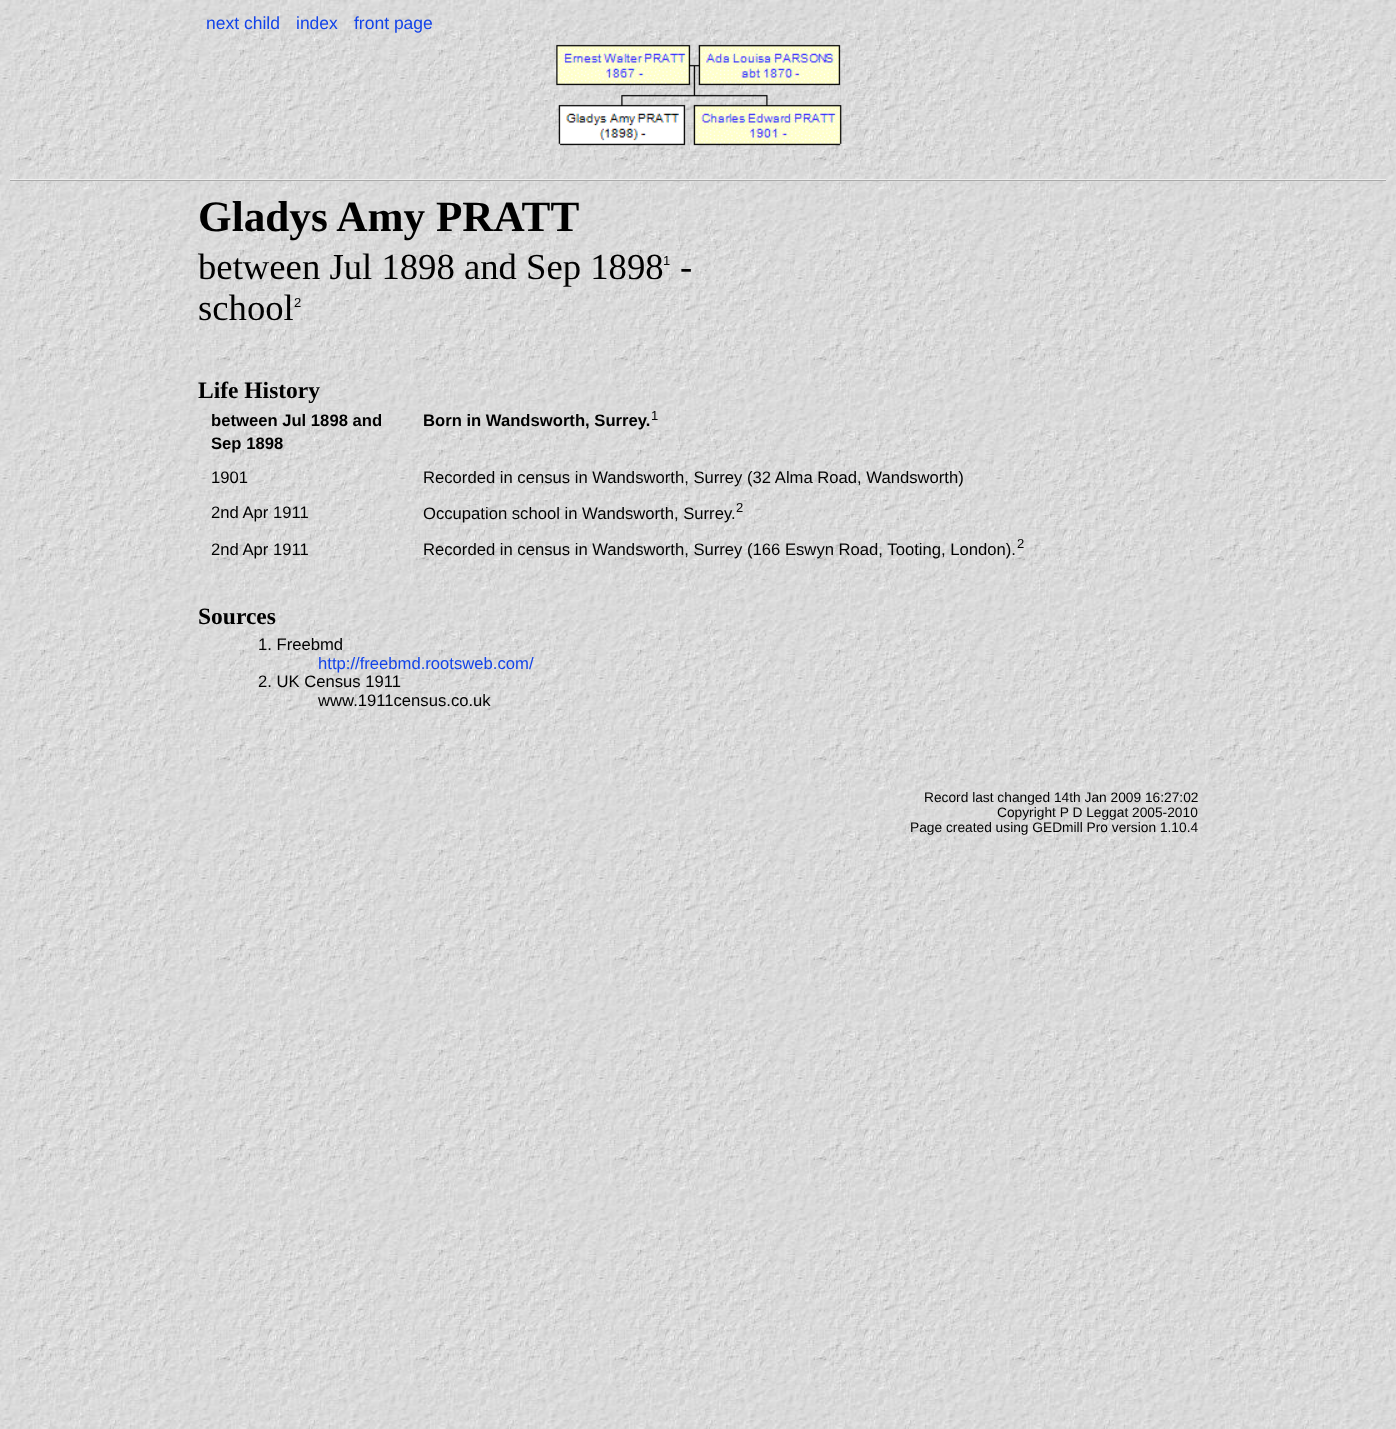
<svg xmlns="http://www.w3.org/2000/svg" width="1396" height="1429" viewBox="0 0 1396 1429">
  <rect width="100%" height="100%" fill="rgb(255,255,255)"/>
  <image x="0" y="0" width="1396" height="1429" href="pic1.png"/>
  <g font-family="Liberation Sans" font-size="17.5" fill="rgb(19,68,233)">
    <text x="206" y="29">next child</text>
    <text x="296" y="29">index</text>
    <text x="354" y="29">front page</text>
  </g>
  <image x="556" y="44" width="286" height="102" href="pic2.png"/>
  <rect x="10" y="179" width="1376" height="1" fill="rgb(238,238,238)"/>
  <rect x="10" y="180" width="1376" height="1" fill="rgb(170,170,170)"/>
  <text x="198" y="231" font-family="Liberation Serif" font-size="43.25" font-weight="bold" fill="rgb(0,0,0)">Gladys Amy PRATT</text>
  <text x="198" y="279" font-family="Liberation Serif" font-size="36.7" fill="rgb(0,0,0)">between Jul 1898 and Sep 1898</text>
  <text x="663" y="265" font-family="Liberation Sans" font-size="13" fill="rgb(0,0,0)">1</text>
  <g font-family="Liberation Serif" font-size="36.7" fill="rgb(0,0,0)">
    <text x="680" y="279">-</text>
    <text x="198" y="320">school</text>
  </g>
  <text x="294" y="307" font-family="Liberation Sans" font-size="13" fill="rgb(0,0,0)">2</text>
  <text x="198" y="398" font-family="Liberation Serif" font-size="23.5" font-weight="bold" fill="rgb(0,0,0)">Life History</text>
  <g font-family="Liberation Sans" font-size="16.65" font-weight="bold" fill="rgb(0,0,0)">
    <text>
      <tspan x="211" y="426">between Jul 1898 and</tspan>
      <tspan x="211" y="449">Sep 1898</tspan>
    </text>
    <text x="423" y="426">Born in Wandsworth, Surrey.</text>
  </g>
  <text x="651" y="420" font-family="Liberation Sans" font-size="13" fill="rgb(0,0,0)">1</text>
  <g font-family="Liberation Sans" font-size="16.65" fill="rgb(0,0,0)">
    <text x="211" y="483">1901</text>
    <text x="423" y="483">Recorded in census in Wandsworth, Surrey (32 Alma Road, Wandsworth)</text>
    <text x="211" y="518">2nd Apr 1911</text>
    <text x="423" y="519">Occupation school in Wandsworth, Surrey.</text>
  </g>
  <text x="736" y="512" font-family="Liberation Sans" font-size="13" fill="rgb(0,0,0)">2</text>
  <g font-family="Liberation Sans" font-size="16.65" fill="rgb(0,0,0)">
    <text x="211" y="555">2nd Apr 1911</text>
    <text x="423" y="555">Recorded in census in Wandsworth, Surrey (166 Eswyn Road, Tooting, London).</text>
  </g>
  <text x="1017" y="548" font-family="Liberation Sans" font-size="13" fill="rgb(0,0,0)">2</text>
  <text x="198" y="624" font-family="Liberation Serif" font-size="23.5" font-weight="bold" fill="rgb(0,0,0)">Sources</text>
  <text x="258" y="650" font-family="Liberation Sans" font-size="16.65" fill="rgb(0,0,0)">1. Freebmd</text>
  <text x="318" y="669" font-family="Liberation Sans" font-size="16.65" fill="rgb(19,68,233)">http://freebmd.rootsweb.com/</text>
  <g font-family="Liberation Sans" font-size="16.65" fill="rgb(0,0,0)">
    <text x="258" y="687">2. UK Census 1911</text>
    <text x="318" y="706">www.1911census.co.uk</text>
  </g>
  <g font-family="Liberation Sans" font-size="13.75" fill="rgb(0,0,0)">
    <text x="924" y="802">Record last changed 14th Jan 2009 16:27:02</text>
    <text x="997" y="817">Copyright P D Leggat 2005-2010</text>
    <text x="910" y="832">Page created using GEDmill Pro version 1.10.4</text>
  </g>
</svg>
